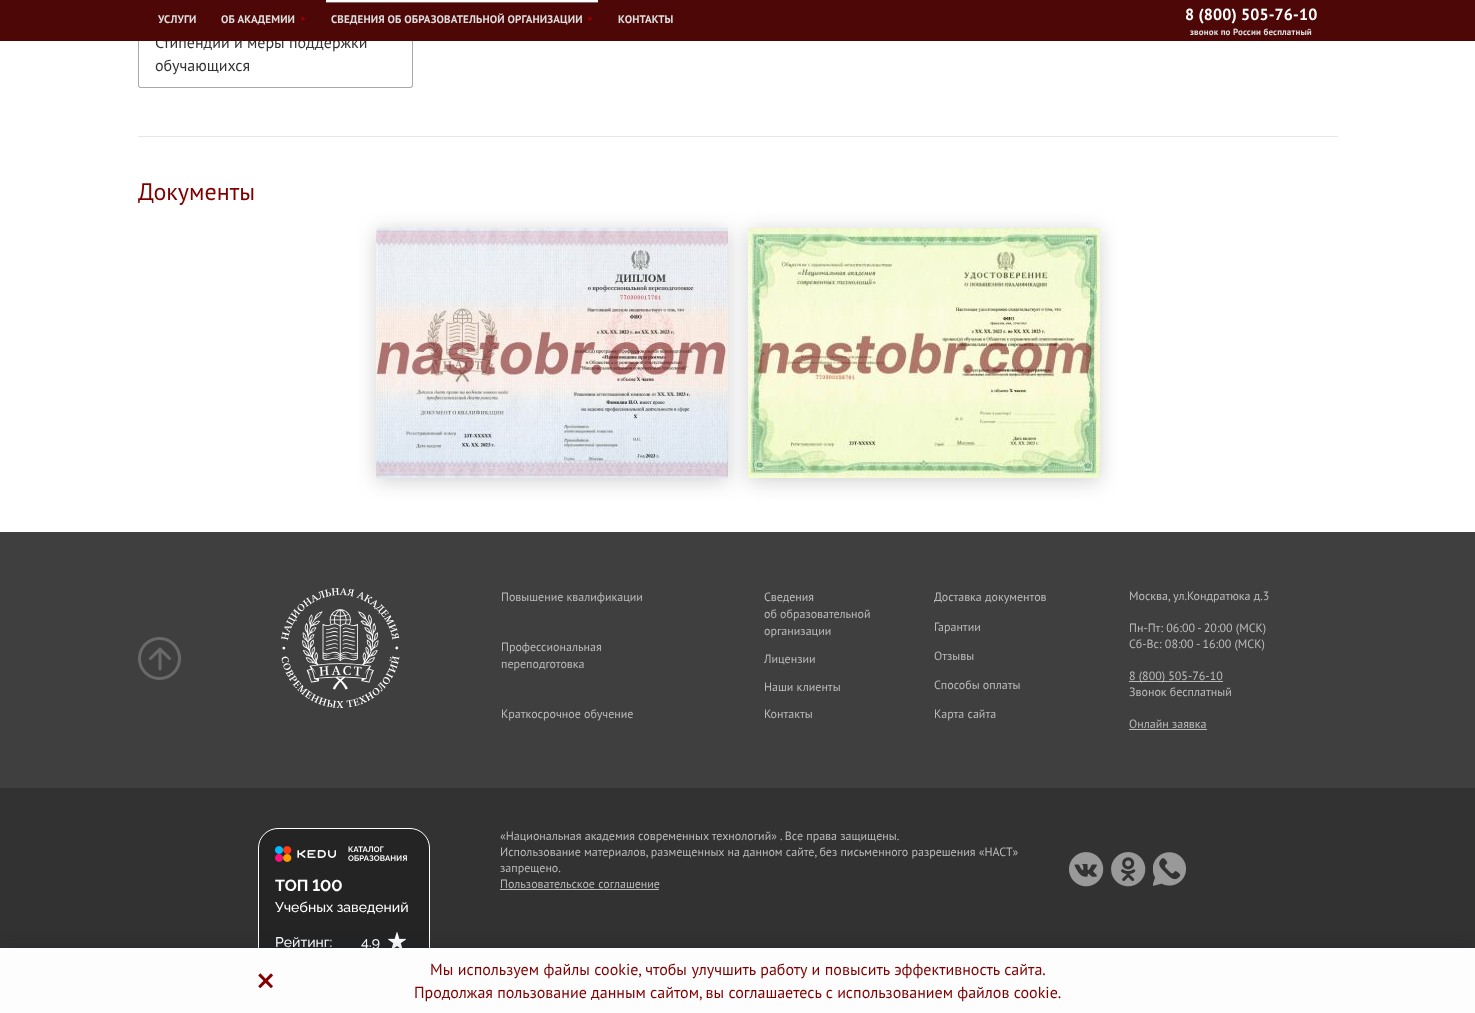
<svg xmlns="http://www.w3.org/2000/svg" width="1475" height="1013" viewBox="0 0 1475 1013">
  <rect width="100%" height="100%" fill="rgb(255,255,255)"/>
  <path d="M138 21H413V85C413 87 412 88 410 88H141C139 88 138 87 138 85ZM139 21H412V85C412 86 411 87 410 87H141C140 87 139 86 139 85Z" fill="rgb(169,169,169)" fill-rule="evenodd"/>
  <text x="155" y="48" font-family="PT Sans" font-size="16" fill="rgb(51,51,51)">Стипендии и меры поддержки</text>
  <rect x="0" y="0" width="1475" height="41" fill="rgb(77,7,7)"/>
  <g font-family="PT Sans" font-size="11" font-weight="bold" letter-spacing="0.15" fill="rgb(221,221,221)">
    <text x="158" y="23">УСЛУГИ</text>
    <text x="221" y="23">ОБ АКАДЕМИИ</text>
  </g>
  <image x="301" y="16" width="5" height="5" href="pic1.png"/>
  <rect x="326" y="0" width="272" height="2" fill="rgb(255,255,255)"/>
  <rect x="326" y="2" width="272" height="1" fill="rgb(127,105,105)"/>
  <text x="331" y="23" font-family="PT Sans" font-size="11" font-weight="bold" letter-spacing="0.15" fill="rgb(221,221,221)">СВЕДЕНИЯ ОБ ОБРАЗОВАТЕЛЬНОЙ ОРГАНИЗАЦИИ</text>
  <image x="588" y="16" width="5" height="5" href="pic1.png"/>
  <text x="618" y="23" font-family="PT Sans" font-size="11" font-weight="bold" letter-spacing="0.15" fill="rgb(221,221,221)">КОНТАКТЫ</text>
  <text x="1185" y="20" font-family="PT Sans" font-size="16" font-weight="bold" letter-spacing="0.15" fill="rgb(255,255,255)">8 (800) 505-76-10</text>
  <text x="1190" y="35" font-family="PT Sans" font-size="9" font-weight="bold" letter-spacing="0.15" fill="rgb(221,221,221)">звонок по России бесплатный</text>
  <text x="155" y="71" font-family="PT Sans" font-size="16" fill="rgb(51,51,51)">обучающихся</text>
  <rect x="138" y="136" width="1200" height="1" fill="rgb(230,230,230)"/>
  <text x="138" y="200" font-family="PT Sans" font-size="24" fill="rgb(128,0,0)">Документы</text>
  <rect x="376" y="231" width="352" height="250" fill="rgb(208,208,208)" filter="blur(10px)"/>
  <image x="376" y="228" width="352" height="250" href="pic2.png"/>
  <rect x="748" y="231" width="352" height="250" fill="rgb(208,208,208)" filter="blur(10px)"/>
  <image x="748" y="228" width="352" height="250" href="pic3.png"/>
  <rect x="0" y="532" width="1475" height="256" fill="rgb(64,63,63)"/>
  <image x="138" y="637" width="43" height="43" href="pic4.png"/>
  <image x="281" y="588" width="119" height="120" href="pic5.png"/>
  <g font-family="PT Sans" font-size="12" fill="rgb(187,187,187)">
    <text x="501" y="601">Повышение квалификации</text>
    <text>
      <tspan x="501" y="651">Профессиональная</tspan>
      <tspan x="501" y="668">переподготовка</tspan>
    </text>
    <text x="501" y="718">Краткосрочное обучение</text>
    <text>
      <tspan x="764" y="601">Сведения</tspan>
      <tspan x="764" y="618">об образовательной</tspan>
      <tspan x="764" y="635">организации</tspan>
    </text>
    <text x="764" y="663">Лицензии</text>
    <text x="764" y="691">Наши клиенты</text>
    <text x="764" y="718">Контакты</text>
    <text x="934" y="601">Доставка документов</text>
    <text x="934" y="631">Гарантии</text>
    <text x="934" y="660">Отзывы</text>
    <text x="934" y="689">Способы оплаты</text>
    <text x="934" y="718">Карта сайта</text>
    <text x="1129" y="600">Москва, ул.Кондратюка д.3</text>
    <text>
      <tspan x="1129" y="632">Пн-Пт: 06:00 - 20:00 (МСК)</tspan>
      <tspan x="1129" y="648">Сб-Вс: 08:00 - 16:00 (МСК)</tspan>
    </text>
  </g>
  <rect x="1129" y="681" width="94" height="1" fill="rgb(187,187,187)"/>
  <g font-family="PT Sans" font-size="12" fill="rgb(187,187,187)">
    <text>
      <tspan x="1129" y="680">8 (800) 505-76-10</tspan>
      <tspan x="1129" y="696">Звонок бесплатный</tspan>
    </text>
    <text x="1129" y="728">Онлайн заявка</text>
  </g>
  <rect x="1129" y="729" width="78" height="1" fill="rgb(187,187,187)"/>
  <rect x="0" y="788" width="1475" height="160" fill="rgb(51,50,50)"/>
  <g font-family="PT Sans" font-size="12" fill="rgb(187,187,187)">
    <text>
      <tspan x="500" y="840">«Национальная академия современных технологий» . Все права защищены.</tspan>
      <tspan x="500" y="856">Использование материалов, размещенных на данном сайте, без письменного разрешения «НАСТ»</tspan>
      <tspan x="500" y="872">запрещено.</tspan>
      <tspan x="500" y="888">Пользовательское соглашение</tspan>
    </text>
  </g>
  <rect x="500" y="889" width="159" height="1" fill="rgb(187,187,187)"/>
  <image x="1069" y="852" width="35" height="35" href="pic6.png"/>
  <image x="1111" y="852" width="35" height="35" href="pic7.png"/>
  <image x="1153" y="852" width="34" height="34" href="pic8.png"/>
  <rect x="258.5" y="828.5" width="171" height="144" rx="19.5" fill="rgb(36,36,36)" stroke="rgb(255,255,255)"/>
  <image x="275" y="846" width="132" height="16" href="pic9.png"/>
  <text x="275" y="891" font-family="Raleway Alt" font-size="16" font-weight="bold" fill="rgb(255,255,255)">ТОП 100</text>
  <g font-family="Raleway" font-size="14" font-weight="500" fill="rgb(255,255,255)">
    <text x="275" y="912">Учебных заведений</text>
    <text x="275" y="947">Рейтинг:</text>
    <text x="361" y="947">4.9</text>
  </g>
  <image x="388" y="932" width="18" height="16" href="pic10.png"/>
  <rect x="0" y="948" width="1475" height="65" fill="rgba(0,16,46,0.2)" filter="blur(8px)"/>
  <rect x="0" y="948" width="1475" height="65" fill="rgb(253,253,253)"/>
  <text x="430" y="975" word-spacing="0.25" font-family="PT Sans" font-size="16" fill="rgb(128,0,0)">Мы используем файлы cookie, чтобы улучшить работу и повысить эффективность сайта.</text>
  <text x="255" y="995" font-family="PT Sans" font-size="42" fill="rgb(128,0,0)">×</text>
  <text x="414" y="998" font-family="PT Sans" font-size="16" fill="rgb(128,0,0)">Продолжая пользование данным сайтом, вы соглашаетесь с использованием файлов cookie.</text>
</svg>
